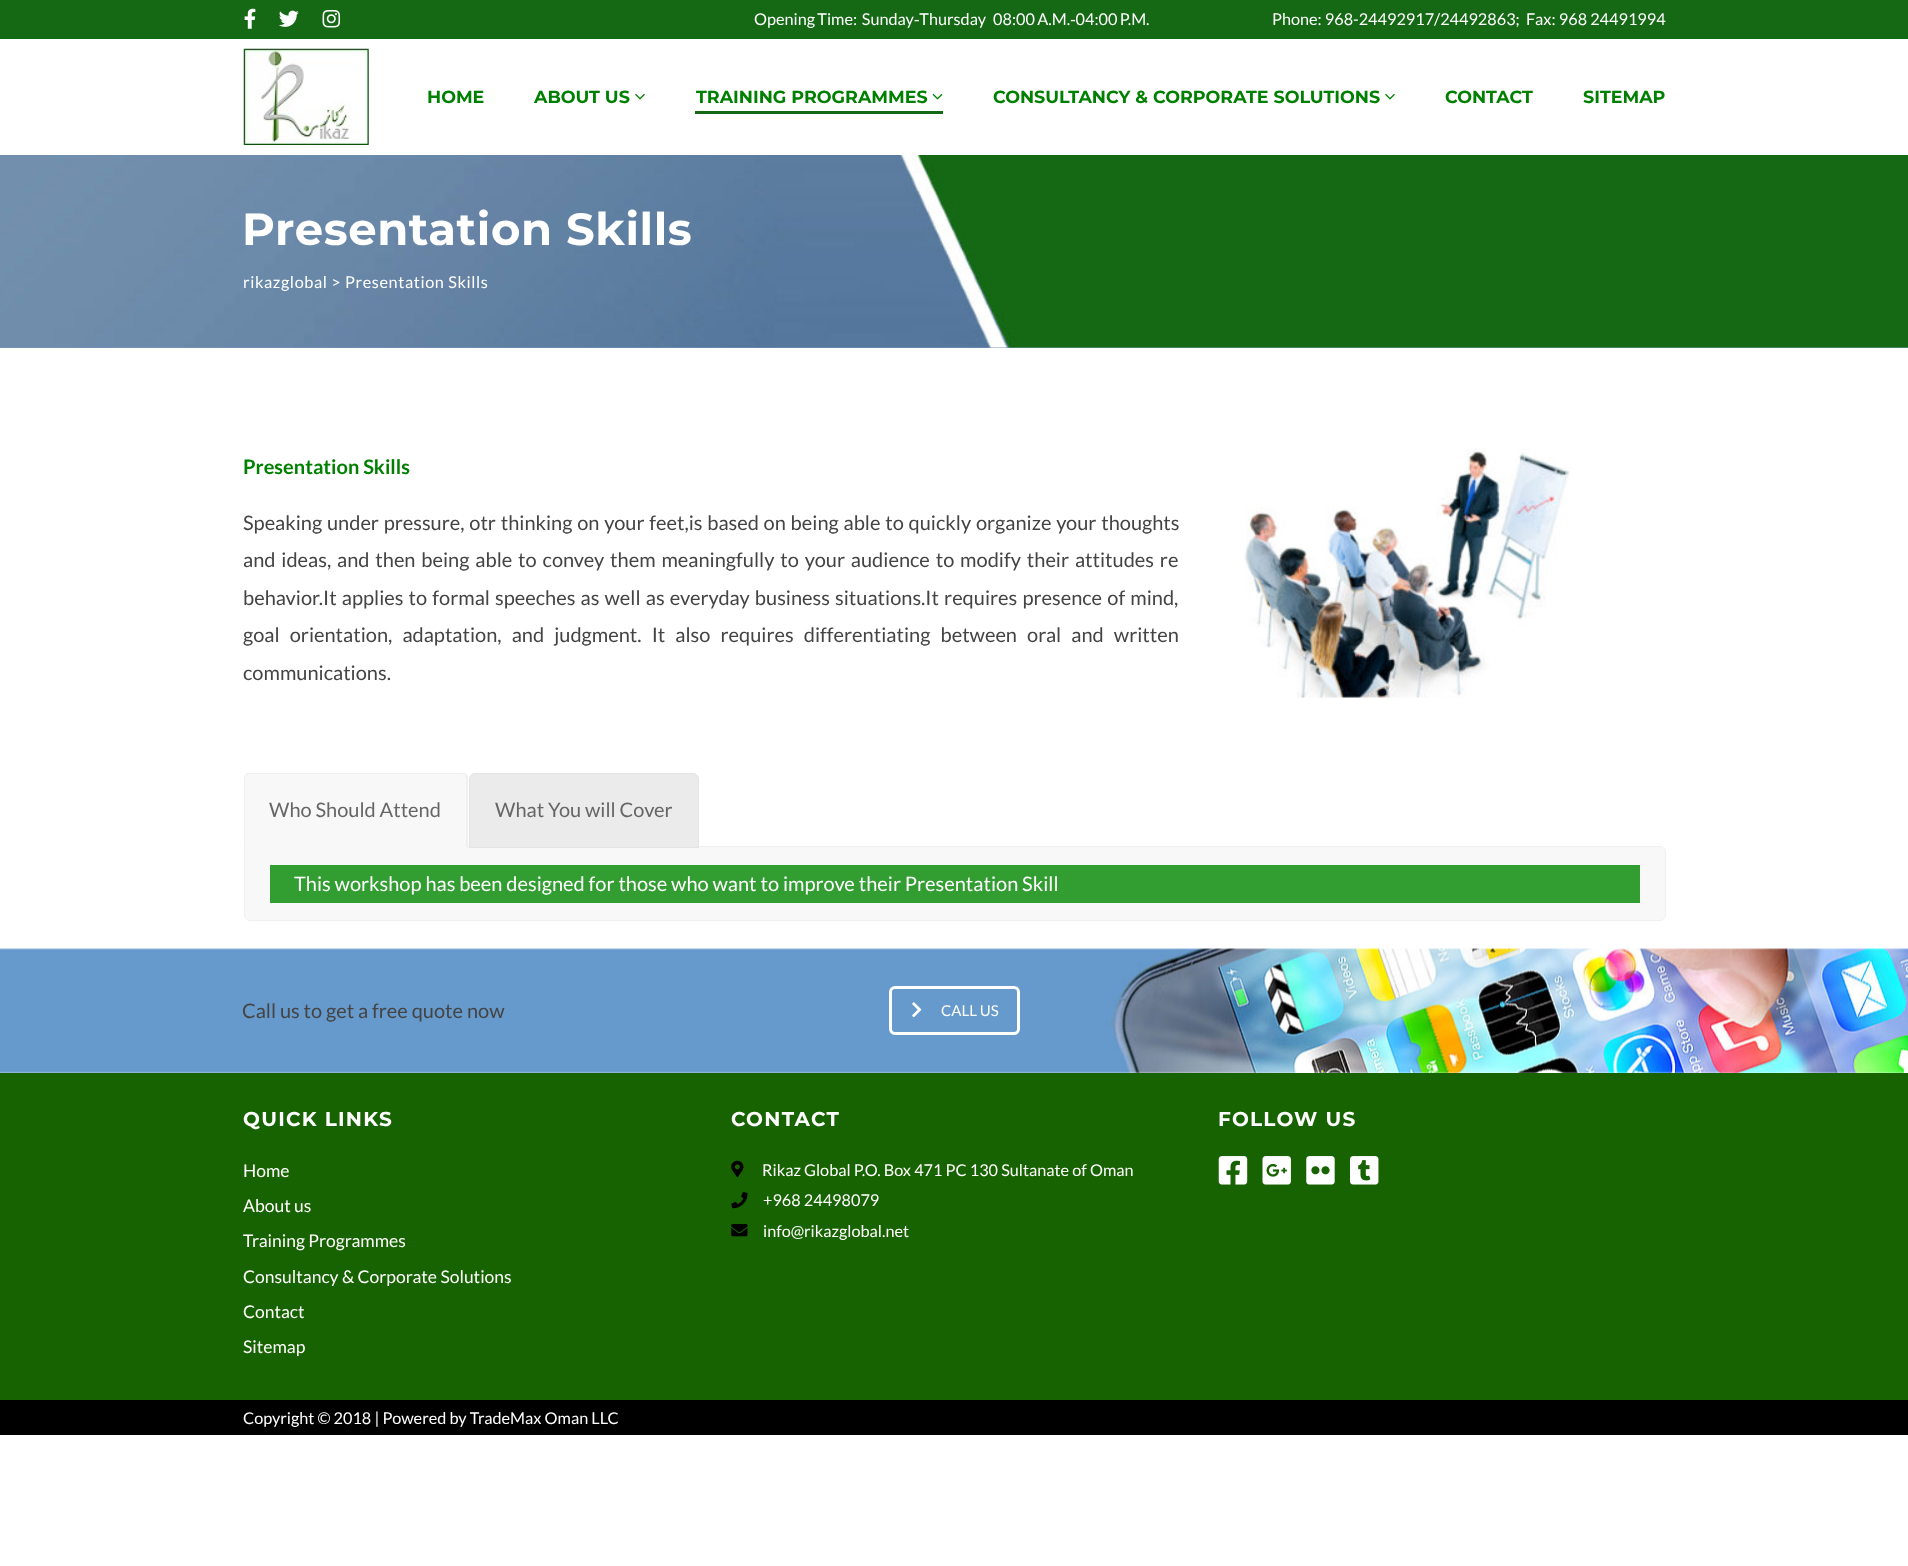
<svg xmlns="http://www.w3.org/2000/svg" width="1908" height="1566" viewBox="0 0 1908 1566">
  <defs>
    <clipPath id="clip1"><rect x="244" y="773" width="1416" height="75"/></clipPath>
  </defs>
  <rect width="100%" height="100%" fill="rgb(255,255,255)"/>
  <rect x="0" y="0" width="1908" height="39" fill="rgb(21,105,21)"/>
  <image x="244" y="8" width="12" height="21" href="pic1.png"/>
  <image x="279" y="10" width="20" height="17" href="pic2.png"/>
  <image x="322" y="10" width="19" height="18" href="pic3.png"/>
  <g font-family="Lato" font-size="16.25" fill="rgb(255,255,255)">
    <text x="754" y="25" word-spacing="-0.75" xml:space="preserve">Opening Time:  Sunday‑Thursday   08:00 A.M.‑04:00 P.M.</text>
    <text x="1272" y="25" xml:space="preserve">Phone: 968-24492917/24492863;  Fax: 968 24491994</text>
  </g>
  <image x="243" y="48" width="126" height="97" href="pic4.png"/>
  <g font-family="Montserrat" font-size="17.5" font-weight="bold" fill="rgb(0,128,0)">
    <text x="427" y="103">HOME</text>
    <text x="534" y="103">ABOUT US</text>
  </g>
  <image x="635" y="93" width="10" height="7" href="pic5.png"/>
  <text x="696" y="103" font-family="Montserrat" font-size="17.5" font-weight="bold" fill="rgb(0,128,0)">TRAINING PROGRAMMES</text>
  <image x="932" y="93" width="11" height="7" href="pic6.png"/>
  <rect x="695" y="111" width="248" height="3" fill="rgb(21,105,21)"/>
  <text x="993" y="103" font-family="Montserrat" font-size="17.5" font-weight="bold" fill="rgb(0,128,0)">CONSULTANCY &amp; CORPORATE SOLUTIONS</text>
  <image x="1385" y="93" width="10" height="7" href="pic5.png"/>
  <g font-family="Montserrat" font-size="17.5" font-weight="bold" fill="rgb(0,128,0)">
    <text x="1445" y="103">CONTACT</text>
    <text x="1583" y="103">SITEMAP</text>
  </g>
  <rect x="0" y="347" width="1908" height="1" fill="rgb(119,150,180)"/>
  <image x="0" y="155" width="1908" height="193" href="pic7.png"/>
  <text x="242" y="245" font-family="Montserrat" font-size="45" font-weight="bold" letter-spacing="0.6" fill="rgb(255,255,255)">Presentation Skills</text>
  <text x="243" y="288" font-family="Lato" font-size="16.25" letter-spacing="0.6" fill="rgb(255,255,255)">rikazglobal &gt; Presentation Skills</text>
  <text x="243" y="474" font-family="Lato" font-size="20" font-weight="bold" fill="rgb(0,128,0)">Presentation Skills</text>
  <g font-family="Lato" font-size="20" fill="rgb(68,68,68)">
    <text>
      <tspan x="243" y="530" word-spacing="0.9">Speaking under pressure, otr thinking on your feet,is based on being able to quickly organize your thoughts</tspan>
      <tspan x="243" y="567" word-spacing="2">and ideas, and then being able to convey them meaningfully to your audience to modify their attitudes re</tspan>
      <tspan x="243" y="605" word-spacing="1.3">behavior.It applies to formal speeches as well as everyday business situations.It requires presence of mind,</tspan>
      <tspan x="243" y="642" word-spacing="6.25">goal orientation, adaptation, and judgment. It also requires differentiating between oral and written</tspan>
      <tspan x="243" y="680">communications.</tspan>
    </text>
  </g>
  <image x="1244" y="448" width="328" height="250" href="pic8.png"/>
  <path d="M244.5 846.5H1660C1663 846.5 1665.5 849 1665.5 852V915C1665.5 918 1663 920.5 1660 920.5H250C247 920.5 244.5 918 244.5 915Z" fill="rgb(248,248,248)" stroke="rgb(240,240,240)"/>
  <path d="M250 773H462C465.5 773 468 775.5 468 779V848H244V779C244 775.5 246.5 773 250 773Z" fill="rgb(248,248,248)"/>
  <g clip-path="url(#clip1)">
    <path d="M250 774C249 774 247 774 247 775L246 774C254 764 271 772 284 772H464L466 774L465 775C464 774 462 774 461 774Z" fill="rgb(240,240,240)"/>
  </g>
  <path d="M466 774L468 776V848L466 846V778L465 775Z" fill="rgb(240,240,240)"/>
  <path d="M244 847V779C244 777 245 776 246 774L247 775L245 778V846Z" fill="rgb(240,240,240)"/>
  <text x="269" y="817" font-family="Lato" font-size="20" fill="rgb(102,102,102)">Who Should Attend</text>
  <rect x="244" y="846" width="1" height="1" fill="rgb(240,240,240)"/>
  <rect x="466" y="846" width="1" height="1" fill="rgb(240,240,240)"/>
  <path d="M475 773.5H693C696 773.5 698.5 776 698.5 779V847.5H469.5V779C469.5 776 472 773.5 475 773.5Z" fill="rgb(235,235,235)" stroke="rgb(227,227,227)"/>
  <text x="495" y="817" font-family="Lato" font-size="20" fill="rgb(102,102,102)">What You will Cover</text>
  <rect x="270" y="865" width="1370" height="38" fill="rgb(50,158,49)"/>
  <text x="294" y="891" font-family="Lato" font-size="20" fill="rgb(255,255,255)">This workshop has been designed for those who want to improve their Presentation Skill</text>
  <image x="0" y="948" width="1908" height="125" href="pic9.png"/>
  <text x="242" y="1018" font-family="Lato" font-size="20" fill="rgb(68,68,68)">Call us to get a free quote now</text>
  <rect x="890.5" y="987.5" width="128" height="46" rx="4.5" fill="none" stroke="rgb(255,255,255)" stroke-width="3"/>
  <image x="912" y="1002" width="10" height="16" href="pic10.png"/>
  <text x="941" y="1016" font-family="Lato" font-size="15" fill="rgb(255,255,255)">CALL US</text>
  <rect x="0" y="1073" width="1908" height="327" fill="rgb(24,99,1)"/>
  <text x="243" y="1126" font-family="Montserrat" font-size="20" font-weight="bold" letter-spacing="1.25" fill="rgb(255,255,255)">QUICK LINKS</text>
  <g font-family="Lato" font-size="17.5" fill="rgb(255,255,255)">
    <text x="243" y="1177">Home</text>
    <text x="243" y="1212">About us</text>
    <text x="243" y="1247">Training Programmes</text>
    <text x="243" y="1283">Consultancy &amp; Corporate Solutions</text>
    <text x="243" y="1318">Contact</text>
    <text x="243" y="1353">Sitemap</text>
  </g>
  <text x="731" y="1126" font-family="Montserrat" font-size="20" font-weight="bold" letter-spacing="1.25" fill="rgb(255,255,255)">CONTACT</text>
  <image x="731" y="1160" width="13" height="17" href="pic11.png"/>
  <text x="762" y="1176" font-family="Lato" font-size="16.25" fill="rgb(255,255,255)">Rikaz Global P.O. Box 471 PC 130 Sultanate of Oman</text>
  <image x="731" y="1192" width="17" height="17" href="pic12.png"/>
  <text x="763" y="1206" font-family="Lato" font-size="16.25" fill="rgb(255,255,255)">+968 24498079</text>
  <image x="731" y="1224" width="17" height="13" href="pic13.png"/>
  <text x="763" y="1237" font-family="Lato" font-size="16.25" fill="rgb(255,255,255)">info@rikazglobal.net</text>
  <text x="1218" y="1126" font-family="Montserrat" font-size="20" font-weight="bold" letter-spacing="1.25" fill="rgb(255,255,255)">FOLLOW US</text>
  <image x="1218" y="1156" width="30" height="29" href="pic14.png"/>
  <image x="1262" y="1156" width="29" height="29" href="pic15.png"/>
  <image x="1306" y="1156" width="29" height="29" href="pic16.png"/>
  <image x="1350" y="1156" width="29" height="29" href="pic17.png"/>
  <rect x="0" y="1400" width="1908" height="35" fill="rgb(0,0,0)"/>
  <text x="243" y="1424" font-family="Lato" font-size="16.25" fill="rgb(255,255,255)">Copyright © 2018 | Powered by TradeMax Oman LLC</text>
</svg>
